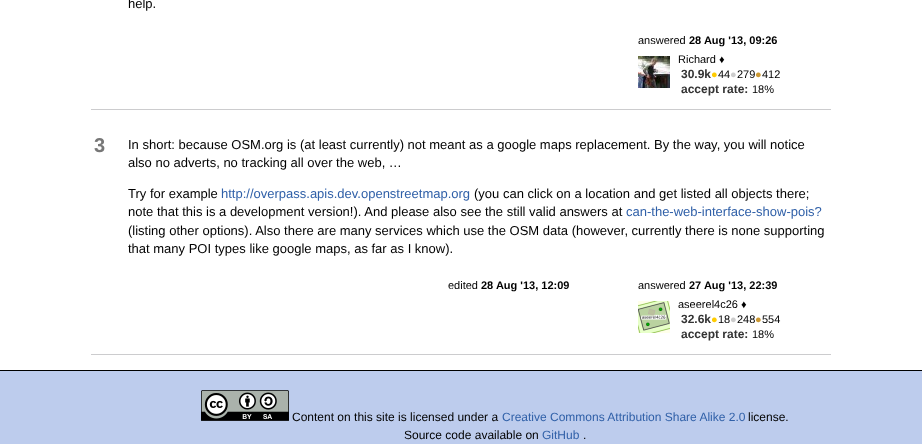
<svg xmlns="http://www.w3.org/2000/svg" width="922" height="444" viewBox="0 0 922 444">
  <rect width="100%" height="100%" fill="rgb(255,255,255)"/>
  <rect x="91" y="109" width="740" height="1" fill="rgb(204,204,206)"/>
  <text x="128" y="8" font-family="Liberation Sans" font-size="13" fill="rgb(0,0,0)">help.</text>
  <text x="638" y="44" font-family="Liberation Sans" font-size="11" fill="rgb(0,0,0)">answered</text>
  <text x="689" y="44" font-family="Liberation Sans" font-size="11" font-weight="bold" fill="rgb(0,0,0)">28 Aug '13, 09:26</text>
  <image x="638" y="56" width="32" height="32" href="pic1.png"/>
  <text x="678" y="63" font-family="Liberation Sans" font-size="11" fill="rgb(0,0,0)">Richard ♦</text>
  <text x="681" y="78" font-family="Liberation Sans" font-size="12" font-weight="bold" fill="rgb(51,51,51)">30.9k</text>
  <text x="711" y="78" font-family="Liberation Sans" font-size="11" fill="rgb(255,204,0)">●</text>
  <text x="718" y="78" font-family="Liberation Sans" font-size="11" fill="rgb(0,0,0)">44</text>
  <text x="730" y="78" font-family="Liberation Sans" font-size="11" fill="rgb(204,204,204)">●</text>
  <text x="737" y="78" font-family="Liberation Sans" font-size="11" fill="rgb(0,0,0)">279</text>
  <text x="755" y="78" font-family="Liberation Sans" font-size="11" fill="rgb(204,153,51)">●</text>
  <text x="762" y="78" font-family="Liberation Sans" font-size="11" fill="rgb(0,0,0)">412</text>
  <text x="681" y="93" font-family="Liberation Sans" font-size="12" font-weight="bold" fill="rgb(51,51,51)">accept rate:</text>
  <text x="752" y="93" font-family="Liberation Sans" font-size="11" fill="rgb(0,0,0)">18%</text>
  <rect x="91" y="354" width="740" height="1" fill="rgb(204,204,206)"/>
  <text x="94" y="152" font-family="Liberation Sans" font-size="20" font-weight="bold" fill="rgb(119,119,119)">3</text>
  <g font-family="Liberation Sans" font-size="13" fill="rgb(0,0,0)">
    <text>
      <tspan x="128" y="149">In short: because OSM.org is (at least currently) not meant as a google maps replacement. By the way, you will notice</tspan>
      <tspan x="128" y="167">also no adverts, no tracking all over the web, …</tspan>
    </text>
    <text x="128" y="198">Try for example</text>
  </g>
  <text x="221" y="198" font-family="Liberation Sans" font-size="13" fill="rgb(48,96,168)">http://overpass.apis.dev.openstreetmap.org</text>
  <g font-family="Liberation Sans" font-size="13" fill="rgb(0,0,0)">
    <text x="474" y="198">(you can click on a location and get listed all objects there;</text>
    <text x="128" y="216">note that this is a development version!). And please also see the still valid answers at</text>
  </g>
  <text x="626" y="216" font-family="Liberation Sans" font-size="13" fill="rgb(48,96,168)">can-the-web-interface-show-pois?</text>
  <g font-family="Liberation Sans" font-size="13" fill="rgb(0,0,0)">
    <text>
      <tspan x="128" y="235">(listing other options). Also there are many services which use the OSM data (however, currently there is none supporting</tspan>
      <tspan x="128" y="253">that many POI types like google maps, as far as I know).</tspan>
    </text>
  </g>
  <text x="448" y="289" font-family="Liberation Sans" font-size="11" fill="rgb(0,0,0)">edited</text>
  <text x="481" y="289" font-family="Liberation Sans" font-size="11" font-weight="bold" fill="rgb(0,0,0)">28 Aug '13, 12:09</text>
  <text x="638" y="289" font-family="Liberation Sans" font-size="11" fill="rgb(0,0,0)">answered</text>
  <text x="689" y="289" font-family="Liberation Sans" font-size="11" font-weight="bold" fill="rgb(0,0,0)">27 Aug '13, 22:39</text>
  <image x="638" y="301" width="32" height="32" href="pic2.png"/>
  <text x="678" y="308" font-family="Liberation Sans" font-size="11" fill="rgb(0,0,0)">aseerel4c26 ♦</text>
  <text x="681" y="323" font-family="Liberation Sans" font-size="12" font-weight="bold" fill="rgb(51,51,51)">32.6k</text>
  <text x="711" y="323" font-family="Liberation Sans" font-size="11" fill="rgb(255,204,0)">●</text>
  <text x="718" y="323" font-family="Liberation Sans" font-size="11" fill="rgb(0,0,0)">18</text>
  <text x="730" y="323" font-family="Liberation Sans" font-size="11" fill="rgb(204,204,204)">●</text>
  <text x="737" y="323" font-family="Liberation Sans" font-size="11" fill="rgb(0,0,0)">248</text>
  <text x="755" y="323" font-family="Liberation Sans" font-size="11" fill="rgb(204,153,51)">●</text>
  <text x="762" y="323" font-family="Liberation Sans" font-size="11" fill="rgb(0,0,0)">554</text>
  <text x="681" y="338" font-family="Liberation Sans" font-size="12" font-weight="bold" fill="rgb(51,51,51)">accept rate:</text>
  <text x="752" y="338" font-family="Liberation Sans" font-size="11" fill="rgb(0,0,0)">18%</text>
  <rect x="0" y="371" width="922" height="73" fill="rgb(189,204,237)"/>
  <rect x="0" y="370" width="922" height="1" fill="rgb(0,0,0)"/>
  <image x="201" y="390" width="88" height="31" href="pic3.png"/>
  <text x="292" y="421" font-family="Liberation Sans" font-size="12" fill="rgb(0,0,0)">Content on this site is licensed under a</text>
  <text x="502" y="421" font-family="Liberation Sans" font-size="12" fill="rgb(48,96,168)">Creative Commons Attribution Share Alike 2.0</text>
  <g font-family="Liberation Sans" font-size="12" fill="rgb(0,0,0)">
    <text x="748" y="421">license.</text>
    <text x="404" y="439">Source code available on</text>
  </g>
  <text x="542" y="439" font-family="Liberation Sans" font-size="12" fill="rgb(48,96,168)">GitHub</text>
  <text x="583" y="439" font-family="Liberation Sans" font-size="12" fill="rgb(0,0,0)">.</text>
</svg>
